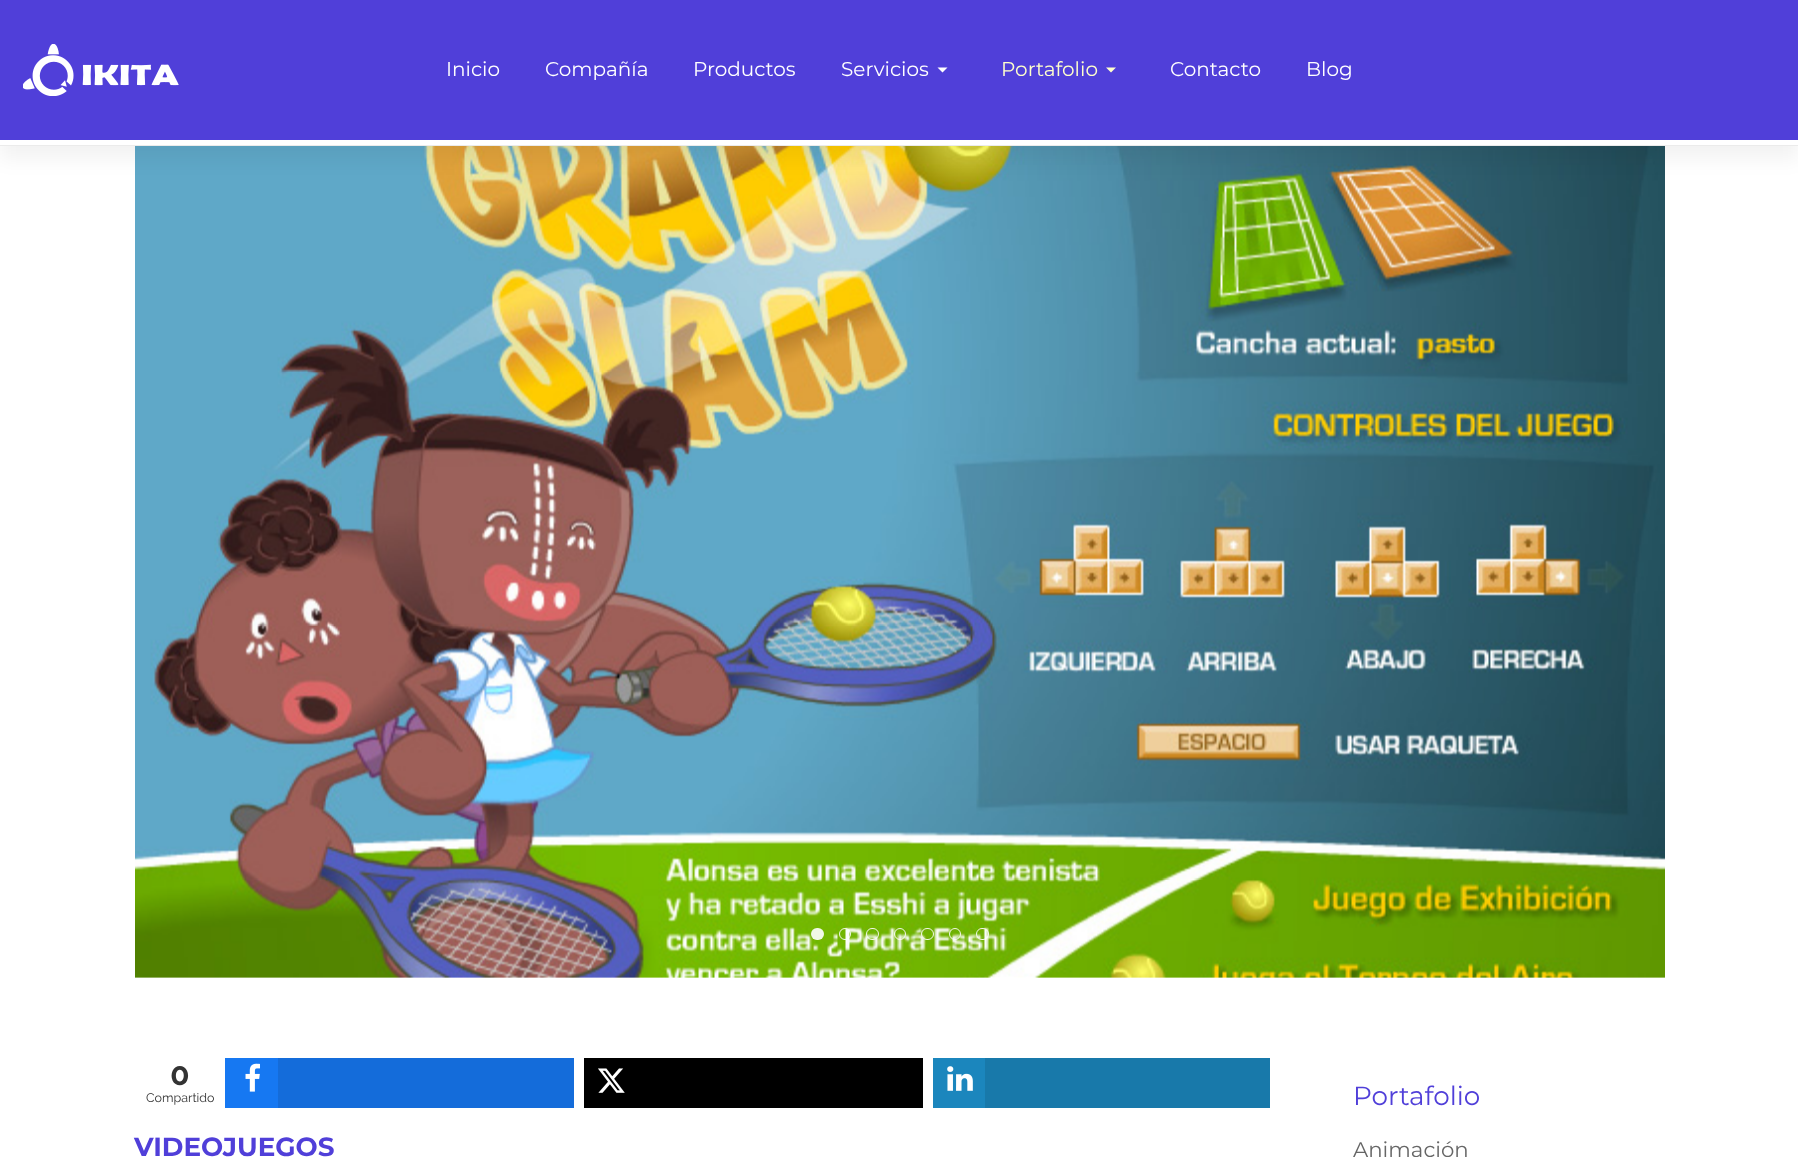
<svg xmlns="http://www.w3.org/2000/svg" width="1798" height="1163" viewBox="0 0 1798 1163">
  <rect width="100%" height="100%" fill="rgb(255,255,255)"/>
  <image x="135" y="146" width="1530" height="832" href="pic2.png"/>
  <rect x="0" y="-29" width="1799" height="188" fill="rgba(0,0,0,0.05)" filter="blur(9.5px)"/>
  <rect x="0" y="145" width="1798" height="1" fill="rgb(235,235,235)"/>
  <rect x="0" y="0" width="1798" height="140" fill="rgb(80,63,217)"/>
  <rect x="0" y="140" width="1798" height="5" fill="rgb(255,255,255)"/>
  <image x="23" y="44" width="156" height="52" href="pic1.png"/>
  <g font-family="Montserrat" font-size="20" fill="rgb(255,255,255)">
    <text x="446" y="76">Inicio</text>
    <text x="545" y="76">Compañía</text>
    <text x="693" y="76">Productos</text>
    <text x="841" y="76">Servicios</text>
  </g>
  <path d="M937.5 67.5H947.5L942.5 72.5Z" fill="rgb(255,255,255)"/>
  <text x="1001" y="76" font-family="Montserrat" font-size="20" fill="rgb(255,255,204)">Portafolio</text>
  <path d="M1106 67.5H1116L1111 72.5Z" fill="rgb(255,255,204)"/>
  <g font-family="Montserrat" font-size="20" fill="rgb(255,255,255)">
    <text x="1170" y="76">Contacto</text>
    <text x="1306" y="76">Blog</text>
  </g>
  <rect x="811" y="928" width="13" height="12" rx="6" fill="rgba(255,255,255,0.9)"/>
  <circle cx="845" cy="934" r="5.5" fill="none" stroke="rgba(255,255,255,0.9)"/>
  <rect x="866.5" y="928.5" width="12" height="11" rx="5.5" fill="none" stroke="rgba(255,255,255,0.9)"/>
  <circle cx="900" cy="934" r="5.5" fill="none" stroke="rgba(255,255,255,0.9)"/>
  <rect x="921.5" y="928.5" width="12" height="11" rx="5.5" fill="none" stroke="rgba(255,255,255,0.9)"/>
  <circle cx="955" cy="934" r="5.5" fill="none" stroke="rgba(255,255,255,0.9)"/>
  <rect x="976.5" y="928.5" width="12" height="11" rx="5.5" fill="none" stroke="rgba(255,255,255,0.9)"/>
  <text x="170" y="1085" font-family="Raleway" font-size="32" font-weight="bold" fill="rgb(51,51,51)">0</text>
  <text x="146" y="1102" font-family="Raleway" font-size="12.5" fill="rgb(51,51,51)">Compartido</text>
  <rect x="225" y="1058" width="53" height="50" fill="rgb(22,120,242)"/>
  <image x="245" y="1063" width="15" height="29" href="pic3.png"/>
  <rect x="278" y="1058" width="296" height="50" fill="rgb(20,108,218)"/>
  <rect x="584" y="1058" width="339" height="50" fill="rgb(0,0,0)"/>
  <image x="598" y="1068" width="27" height="25" href="pic4.png"/>
  <rect x="933" y="1058" width="52" height="50" fill="rgb(27,134,189)"/>
  <image x="947" y="1066" width="26" height="25" href="pic5.png"/>
  <rect x="985" y="1058" width="285" height="50" fill="rgb(24,121,170)"/>
  <text x="134" y="1156" font-family="Montserrat" font-size="26.25" font-weight="bold" fill="rgb(80,63,217)">VIDEOJUEGOS</text>
  <text x="1353" y="1105" font-family="Montserrat" font-size="26.25" fill="rgb(80,63,217)">Portafolio</text>
  <text x="1353" y="1157" font-family="Montserrat" font-size="21.25" fill="rgb(102,102,102)">Animación</text>
</svg>
